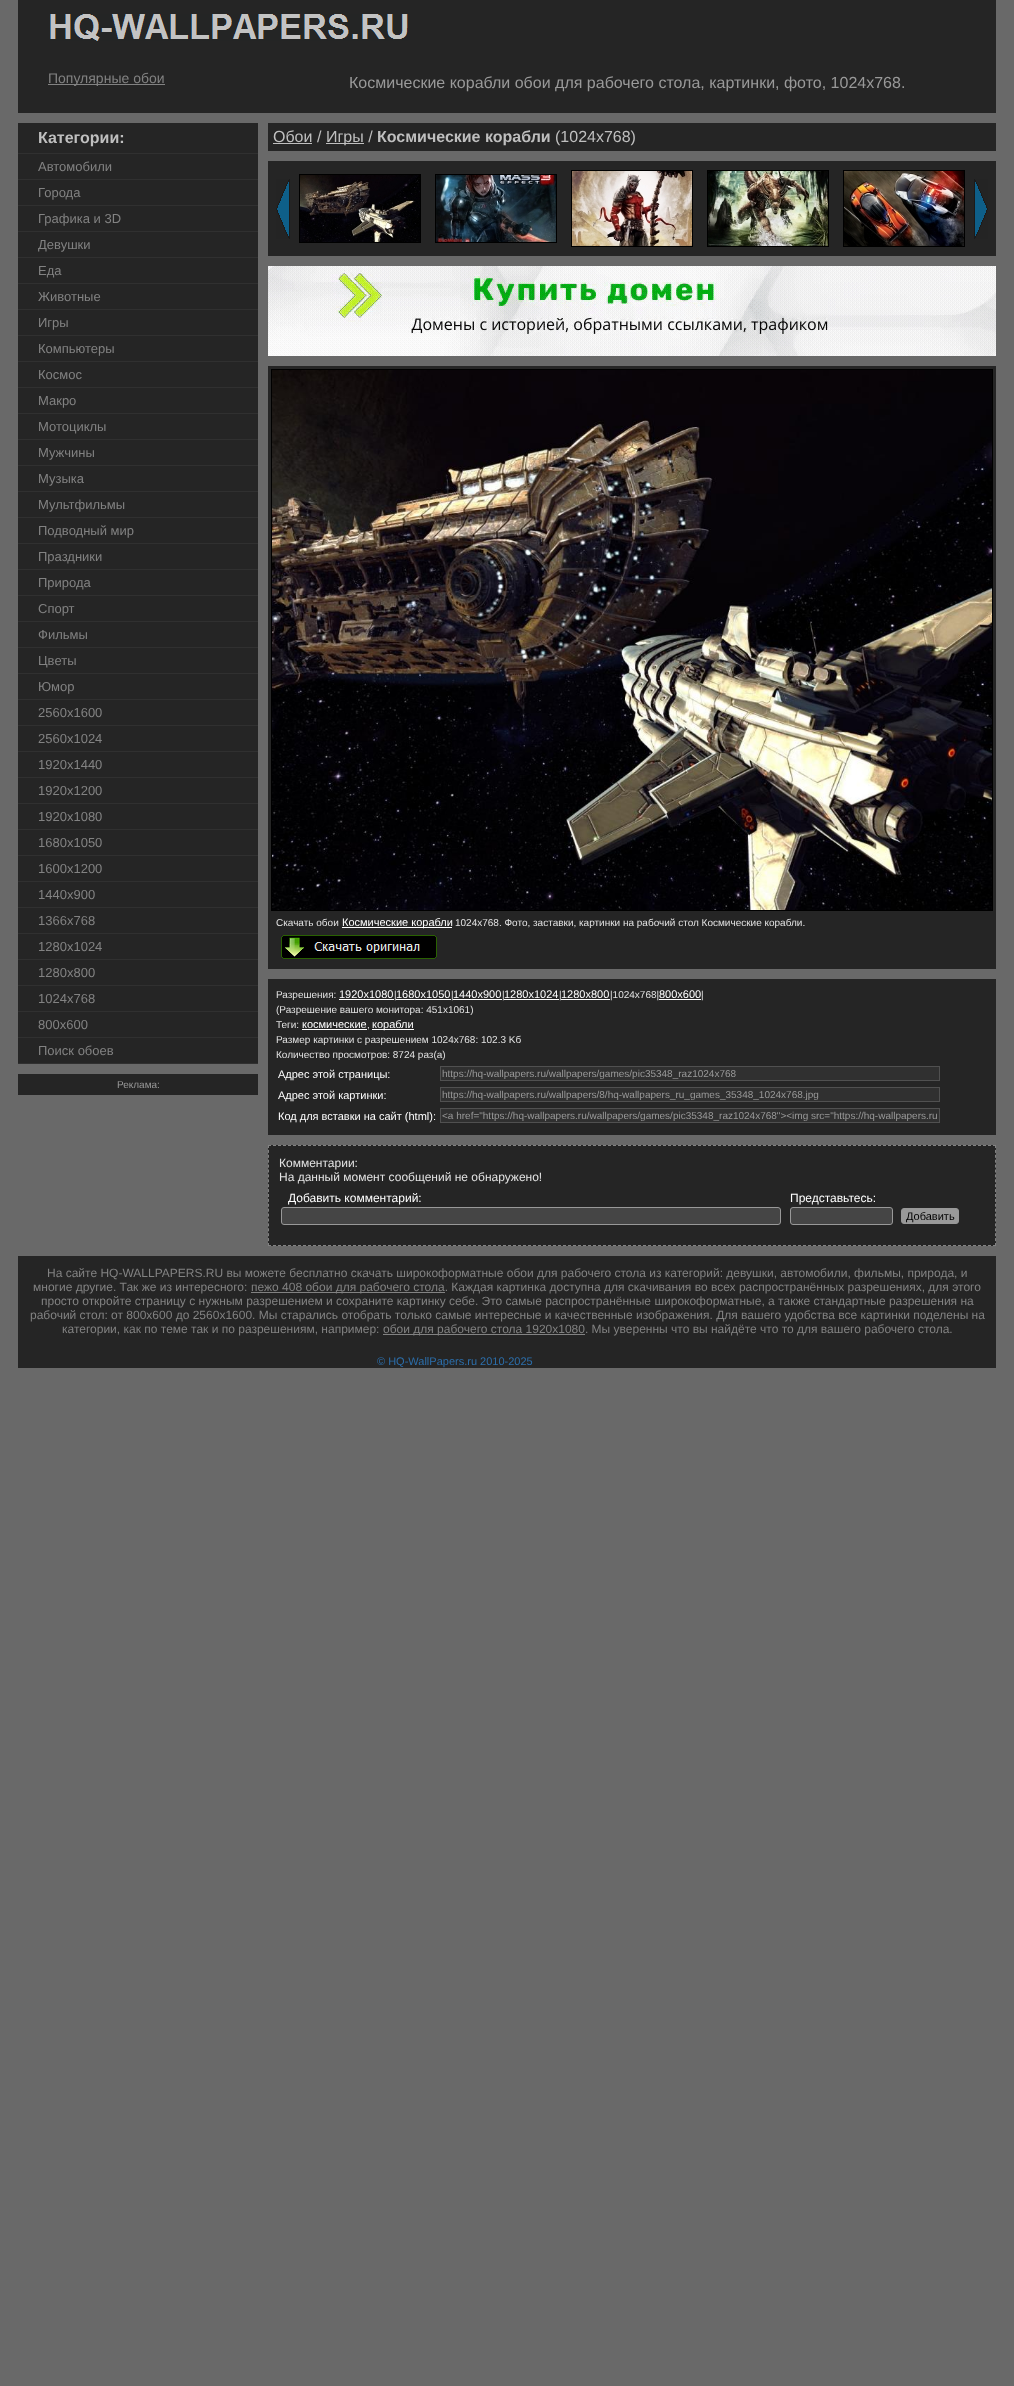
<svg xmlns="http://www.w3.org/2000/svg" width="1014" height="2386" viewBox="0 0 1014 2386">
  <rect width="100%" height="100%" fill="rgb(105,105,105)"/>
  <rect x="18" y="0" width="978" height="53" fill="rgb(37,37,37)"/>
  <image x="50" y="14" width="358" height="27" href="pic1.png"/>
  <rect x="18" y="53" width="978" height="60" fill="rgb(37,37,37)"/>
  <rect x="48" y="84" width="117" height="1" fill="rgb(130,130,130)"/>
  <text x="48" y="83" font-family="Liberation Sans" font-size="14" fill="rgb(130,130,130)">Популярные обои</text>
  <text x="349" y="88" font-family="Liberation Sans" font-size="16" fill="rgb(153,153,153)">Космические корабли обои для рабочего стола, картинки, фото, 1024x768.</text>
  <rect x="18" y="123" width="240" height="30" fill="rgb(37,37,37)"/>
  <rect x="18" y="153" width="240" height="1" fill="rgb(48,48,48)"/>
  <text x="38" y="143" font-family="Liberation Sans" font-size="16" font-weight="bold" fill="rgb(191,191,191)">Категории:</text>
  <rect x="18" y="154" width="240" height="25" fill="rgb(37,37,37)"/>
  <rect x="18" y="179" width="240" height="1" fill="rgb(48,48,48)"/>
  <text x="38" y="171" font-family="Liberation Sans" font-size="13" fill="rgb(130,130,130)">Автомобили</text>
  <rect x="18" y="180" width="240" height="25" fill="rgb(37,37,37)"/>
  <rect x="18" y="205" width="240" height="1" fill="rgb(48,48,48)"/>
  <text x="38" y="197" font-family="Liberation Sans" font-size="13" fill="rgb(130,130,130)">Города</text>
  <rect x="18" y="206" width="240" height="25" fill="rgb(37,37,37)"/>
  <rect x="18" y="231" width="240" height="1" fill="rgb(48,48,48)"/>
  <text x="38" y="223" font-family="Liberation Sans" font-size="13" fill="rgb(130,130,130)">Графика и 3D</text>
  <rect x="18" y="232" width="240" height="25" fill="rgb(37,37,37)"/>
  <rect x="18" y="257" width="240" height="1" fill="rgb(48,48,48)"/>
  <text x="38" y="249" font-family="Liberation Sans" font-size="13" fill="rgb(130,130,130)">Девушки</text>
  <rect x="18" y="258" width="240" height="25" fill="rgb(37,37,37)"/>
  <rect x="18" y="283" width="240" height="1" fill="rgb(48,48,48)"/>
  <text x="38" y="275" font-family="Liberation Sans" font-size="13" fill="rgb(130,130,130)">Еда</text>
  <rect x="18" y="284" width="240" height="25" fill="rgb(37,37,37)"/>
  <rect x="18" y="309" width="240" height="1" fill="rgb(48,48,48)"/>
  <text x="38" y="301" font-family="Liberation Sans" font-size="13" fill="rgb(130,130,130)">Животные</text>
  <rect x="18" y="310" width="240" height="25" fill="rgb(37,37,37)"/>
  <rect x="18" y="335" width="240" height="1" fill="rgb(48,48,48)"/>
  <text x="38" y="327" font-family="Liberation Sans" font-size="13" fill="rgb(130,130,130)">Игры</text>
  <rect x="18" y="336" width="240" height="25" fill="rgb(37,37,37)"/>
  <rect x="18" y="361" width="240" height="1" fill="rgb(48,48,48)"/>
  <text x="38" y="353" font-family="Liberation Sans" font-size="13" fill="rgb(130,130,130)">Компьютеры</text>
  <rect x="18" y="362" width="240" height="25" fill="rgb(37,37,37)"/>
  <rect x="18" y="387" width="240" height="1" fill="rgb(48,48,48)"/>
  <text x="38" y="379" font-family="Liberation Sans" font-size="13" fill="rgb(130,130,130)">Космос</text>
  <rect x="18" y="388" width="240" height="25" fill="rgb(37,37,37)"/>
  <rect x="18" y="413" width="240" height="1" fill="rgb(48,48,48)"/>
  <text x="38" y="405" font-family="Liberation Sans" font-size="13" fill="rgb(130,130,130)">Макро</text>
  <rect x="18" y="414" width="240" height="25" fill="rgb(37,37,37)"/>
  <rect x="18" y="439" width="240" height="1" fill="rgb(48,48,48)"/>
  <text x="38" y="431" font-family="Liberation Sans" font-size="13" fill="rgb(130,130,130)">Мотоциклы</text>
  <rect x="18" y="440" width="240" height="25" fill="rgb(37,37,37)"/>
  <rect x="18" y="465" width="240" height="1" fill="rgb(48,48,48)"/>
  <text x="38" y="457" font-family="Liberation Sans" font-size="13" fill="rgb(130,130,130)">Мужчины</text>
  <rect x="18" y="466" width="240" height="25" fill="rgb(37,37,37)"/>
  <rect x="18" y="491" width="240" height="1" fill="rgb(48,48,48)"/>
  <text x="38" y="483" font-family="Liberation Sans" font-size="13" fill="rgb(130,130,130)">Музыка</text>
  <rect x="18" y="492" width="240" height="25" fill="rgb(37,37,37)"/>
  <rect x="18" y="517" width="240" height="1" fill="rgb(48,48,48)"/>
  <text x="38" y="509" font-family="Liberation Sans" font-size="13" fill="rgb(130,130,130)">Мультфильмы</text>
  <rect x="18" y="518" width="240" height="25" fill="rgb(37,37,37)"/>
  <rect x="18" y="543" width="240" height="1" fill="rgb(48,48,48)"/>
  <text x="38" y="535" font-family="Liberation Sans" font-size="13" fill="rgb(130,130,130)">Подводный мир</text>
  <rect x="18" y="544" width="240" height="25" fill="rgb(37,37,37)"/>
  <rect x="18" y="569" width="240" height="1" fill="rgb(48,48,48)"/>
  <text x="38" y="561" font-family="Liberation Sans" font-size="13" fill="rgb(130,130,130)">Праздники</text>
  <rect x="18" y="570" width="240" height="25" fill="rgb(37,37,37)"/>
  <rect x="18" y="595" width="240" height="1" fill="rgb(48,48,48)"/>
  <text x="38" y="587" font-family="Liberation Sans" font-size="13" fill="rgb(130,130,130)">Природа</text>
  <rect x="18" y="596" width="240" height="25" fill="rgb(37,37,37)"/>
  <rect x="18" y="621" width="240" height="1" fill="rgb(48,48,48)"/>
  <text x="38" y="613" font-family="Liberation Sans" font-size="13" fill="rgb(130,130,130)">Спорт</text>
  <rect x="18" y="622" width="240" height="25" fill="rgb(37,37,37)"/>
  <rect x="18" y="647" width="240" height="1" fill="rgb(48,48,48)"/>
  <text x="38" y="639" font-family="Liberation Sans" font-size="13" fill="rgb(130,130,130)">Фильмы</text>
  <rect x="18" y="648" width="240" height="25" fill="rgb(37,37,37)"/>
  <rect x="18" y="673" width="240" height="1" fill="rgb(48,48,48)"/>
  <text x="38" y="665" font-family="Liberation Sans" font-size="13" fill="rgb(130,130,130)">Цветы</text>
  <rect x="18" y="674" width="240" height="25" fill="rgb(37,37,37)"/>
  <rect x="18" y="699" width="240" height="1" fill="rgb(48,48,48)"/>
  <text x="38" y="691" font-family="Liberation Sans" font-size="13" fill="rgb(130,130,130)">Юмор</text>
  <rect x="18" y="700" width="240" height="25" fill="rgb(37,37,37)"/>
  <rect x="18" y="725" width="240" height="1" fill="rgb(48,48,48)"/>
  <text x="38" y="717" font-family="Liberation Sans" font-size="13" fill="rgb(130,130,130)">2560x1600</text>
  <rect x="18" y="726" width="240" height="25" fill="rgb(37,37,37)"/>
  <rect x="18" y="751" width="240" height="1" fill="rgb(48,48,48)"/>
  <text x="38" y="743" font-family="Liberation Sans" font-size="13" fill="rgb(130,130,130)">2560x1024</text>
  <rect x="18" y="752" width="240" height="25" fill="rgb(37,37,37)"/>
  <rect x="18" y="777" width="240" height="1" fill="rgb(48,48,48)"/>
  <text x="38" y="769" font-family="Liberation Sans" font-size="13" fill="rgb(130,130,130)">1920x1440</text>
  <rect x="18" y="778" width="240" height="25" fill="rgb(37,37,37)"/>
  <rect x="18" y="803" width="240" height="1" fill="rgb(48,48,48)"/>
  <text x="38" y="795" font-family="Liberation Sans" font-size="13" fill="rgb(130,130,130)">1920x1200</text>
  <rect x="18" y="804" width="240" height="25" fill="rgb(37,37,37)"/>
  <rect x="18" y="829" width="240" height="1" fill="rgb(48,48,48)"/>
  <text x="38" y="821" font-family="Liberation Sans" font-size="13" fill="rgb(130,130,130)">1920x1080</text>
  <rect x="18" y="830" width="240" height="25" fill="rgb(37,37,37)"/>
  <rect x="18" y="855" width="240" height="1" fill="rgb(48,48,48)"/>
  <text x="38" y="847" font-family="Liberation Sans" font-size="13" fill="rgb(130,130,130)">1680x1050</text>
  <rect x="18" y="856" width="240" height="25" fill="rgb(37,37,37)"/>
  <rect x="18" y="881" width="240" height="1" fill="rgb(48,48,48)"/>
  <text x="38" y="873" font-family="Liberation Sans" font-size="13" fill="rgb(130,130,130)">1600x1200</text>
  <rect x="18" y="882" width="240" height="25" fill="rgb(37,37,37)"/>
  <rect x="18" y="907" width="240" height="1" fill="rgb(48,48,48)"/>
  <text x="38" y="899" font-family="Liberation Sans" font-size="13" fill="rgb(130,130,130)">1440x900</text>
  <rect x="18" y="908" width="240" height="25" fill="rgb(37,37,37)"/>
  <rect x="18" y="933" width="240" height="1" fill="rgb(48,48,48)"/>
  <text x="38" y="925" font-family="Liberation Sans" font-size="13" fill="rgb(130,130,130)">1366x768</text>
  <rect x="18" y="934" width="240" height="25" fill="rgb(37,37,37)"/>
  <rect x="18" y="959" width="240" height="1" fill="rgb(48,48,48)"/>
  <text x="38" y="951" font-family="Liberation Sans" font-size="13" fill="rgb(130,130,130)">1280x1024</text>
  <rect x="18" y="960" width="240" height="25" fill="rgb(37,37,37)"/>
  <rect x="18" y="985" width="240" height="1" fill="rgb(48,48,48)"/>
  <text x="38" y="977" font-family="Liberation Sans" font-size="13" fill="rgb(130,130,130)">1280x800</text>
  <rect x="18" y="986" width="240" height="25" fill="rgb(37,37,37)"/>
  <rect x="18" y="1011" width="240" height="1" fill="rgb(48,48,48)"/>
  <text x="38" y="1003" font-family="Liberation Sans" font-size="13" fill="rgb(130,130,130)">1024x768</text>
  <rect x="18" y="1012" width="240" height="25" fill="rgb(37,37,37)"/>
  <rect x="18" y="1037" width="240" height="1" fill="rgb(48,48,48)"/>
  <text x="38" y="1029" font-family="Liberation Sans" font-size="13" fill="rgb(130,130,130)">800x600</text>
  <rect x="18" y="1038" width="240" height="25" fill="rgb(37,37,37)"/>
  <rect x="18" y="1063" width="240" height="1" fill="rgb(48,48,48)"/>
  <text x="38" y="1055" font-family="Liberation Sans" font-size="13" fill="rgb(130,130,130)">Поиск обоев</text>
  <rect x="18" y="1074" width="240" height="21" fill="rgb(37,37,37)"/>
  <text x="117" y="1088" font-family="Liberation Sans" font-size="10" fill="rgb(153,153,153)">Реклама:</text>
  <rect x="268" y="123" width="728" height="28" fill="rgb(37,37,37)"/>
  <text x="273" y="142" font-family="Liberation Sans" font-size="16" fill="rgb(191,191,191)">Обои /</text>
  <rect x="273" y="143" width="39" height="1" fill="rgb(191,191,191)"/>
  <rect x="326" y="143" width="38" height="1" fill="rgb(191,191,191)"/>
  <text x="326" y="142" font-family="Liberation Sans" font-size="16" fill="rgb(191,191,191)">Игры /</text>
  <text x="377" y="142" font-family="Liberation Sans" font-size="16" font-weight="bold" fill="rgb(191,191,191)">Космические корабли</text>
  <text x="555" y="142" font-family="Liberation Sans" font-size="16" fill="rgb(191,191,191)">(1024x768)</text>
  <rect x="268" y="161" width="728" height="95" fill="rgb(37,37,37)"/>
  <image x="276" y="179" width="14" height="60" href="pic2.png"/>
  <rect x="571.5" y="170.5" width="121" height="76" fill="none" stroke="rgb(0,0,0)"/>
  <rect x="707.5" y="170.5" width="121" height="76" fill="none" stroke="rgb(0,0,0)"/>
  <rect x="843.5" y="170.5" width="121" height="76" fill="none" stroke="rgb(0,0,0)"/>
  <rect x="299.5" y="174.5" width="121" height="68" fill="none" stroke="rgb(0,0,0)"/>
  <rect x="435.5" y="174.5" width="121" height="68" fill="none" stroke="rgb(0,0,0)"/>
  <image x="572" y="171" width="120" height="75" href="pic3.png"/>
  <image x="708" y="171" width="120" height="75" href="pic4.png"/>
  <image x="844" y="171" width="120" height="75" href="pic5.png"/>
  <image x="300" y="175" width="120" height="67" href="pic6.png"/>
  <image x="436" y="175" width="120" height="67" href="pic7.png"/>
  <image x="974" y="179" width="14" height="60" href="pic8.png"/>
  <image x="268" y="266" width="728" height="90" href="pic9.png"/>
  <rect x="268" y="366" width="728" height="603" fill="rgb(37,37,37)"/>
  <rect x="271.5" y="369.5" width="721" height="541" fill="none" stroke="rgb(0,0,0)"/>
  <image x="272" y="370" width="720" height="540" href="pic10.png"/>
  <text x="276" y="926" font-family="Liberation Sans" font-size="10" fill="rgb(226,226,226)">Скачать обои</text>
  <rect x="342" y="927" width="110" height="1" fill="rgb(255,255,255)"/>
  <text x="342" y="926" font-family="Liberation Sans" font-size="11" fill="rgb(255,255,255)">Космические корабли</text>
  <text x="455" y="926" font-family="Liberation Sans" font-size="10" fill="rgb(226,226,226)">1024x768. Фото, заставки, картинки на рабочий стол Космические корабли.</text>
  <image x="281" y="935" width="156" height="24" href="pic11.png"/>
  <rect x="268" y="979" width="728" height="156" fill="rgb(37,37,37)"/>
  <text x="276" y="998" font-family="Liberation Sans" font-size="10" fill="rgb(226,226,226)">Разрешения:</text>
  <text x="339" y="998" font-family="Liberation Sans" font-size="11" fill="rgb(255,255,255)">1920x1080</text>
  <rect x="339" y="999" width="55" height="1" fill="rgb(255,255,255)"/>
  <text x="394" y="998" font-family="Liberation Sans" font-size="10" fill="rgb(226,226,226)">|</text>
  <text x="396" y="998" font-family="Liberation Sans" font-size="11" fill="rgb(255,255,255)">1680x1050</text>
  <rect x="396" y="999" width="55" height="1" fill="rgb(255,255,255)"/>
  <text x="451" y="998" font-family="Liberation Sans" font-size="10" fill="rgb(226,226,226)">|</text>
  <text x="453" y="998" font-family="Liberation Sans" font-size="11" fill="rgb(255,255,255)">1440x900</text>
  <rect x="453" y="999" width="49" height="1" fill="rgb(255,255,255)"/>
  <text x="502" y="998" font-family="Liberation Sans" font-size="10" fill="rgb(226,226,226)">|</text>
  <text x="504" y="998" font-family="Liberation Sans" font-size="11" fill="rgb(255,255,255)">1280x1024</text>
  <rect x="504" y="999" width="55" height="1" fill="rgb(255,255,255)"/>
  <text x="559" y="998" font-family="Liberation Sans" font-size="10" fill="rgb(226,226,226)">|</text>
  <text x="561" y="998" font-family="Liberation Sans" font-size="11" fill="rgb(255,255,255)">1280x800</text>
  <rect x="561" y="999" width="49" height="1" fill="rgb(255,255,255)"/>
  <text x="610" y="998" font-family="Liberation Sans" font-size="10" fill="rgb(226,226,226)">|1024x768|</text>
  <text x="659" y="998" font-family="Liberation Sans" font-size="11" fill="rgb(255,255,255)">800x600</text>
  <rect x="659" y="999" width="42" height="1" fill="rgb(255,255,255)"/>
  <g font-family="Liberation Sans" font-size="10" fill="rgb(226,226,226)">
    <text x="701" y="998">|</text>
    <text>
      <tspan x="276" y="1013">(Разрешение вашего монитора: 451x1061)</tspan>
      <tspan x="276" y="1028">Теги:</tspan>
    </text>
  </g>
  <text x="302" y="1028" font-family="Liberation Sans" font-size="11" fill="rgb(255,255,255)">космические</text>
  <rect x="302" y="1029" width="65" height="1" fill="rgb(255,255,255)"/>
  <text x="367" y="1028" font-family="Liberation Sans" font-size="10" fill="rgb(226,226,226)">,</text>
  <rect x="372" y="1029" width="42" height="1" fill="rgb(255,255,255)"/>
  <text x="372" y="1028" font-family="Liberation Sans" font-size="11" fill="rgb(255,255,255)">корабли</text>
  <g font-family="Liberation Sans" font-size="10" fill="rgb(226,226,226)">
    <text>
      <tspan x="276" y="1043">Размер картинки с разрешением 1024x768: 102.3 Kб</tspan>
      <tspan x="276" y="1058">Количество просмотров: 8724 раз(а)</tspan>
    </text>
  </g>
  <text x="278" y="1078" font-family="Liberation Sans" font-size="11" fill="rgb(255,255,255)">Адрес этой страницы:</text>
  <rect x="440.5" y="1066.5" width="499" height="14" fill="rgb(48,48,48)" stroke="rgb(80,80,80)"/>
  <text x="442" y="1077" font-family="Liberation Sans" font-size="10" fill="rgb(153,153,153)">https://hq-wallpapers.ru/wallpapers/games/pic35348_raz1024x768</text>
  <text x="278" y="1099" font-family="Liberation Sans" font-size="11" fill="rgb(255,255,255)">Адрес этой картинки:</text>
  <rect x="440.5" y="1087.5" width="499" height="14" fill="rgb(48,48,48)" stroke="rgb(80,80,80)"/>
  <text x="442" y="1098" font-family="Liberation Sans" font-size="10" fill="rgb(153,153,153)">https://hq-wallpapers.ru/wallpapers/8/hq-wallpapers_ru_games_35348_1024x768.jpg</text>
  <text x="278" y="1120" font-family="Liberation Sans" font-size="11" fill="rgb(255,255,255)">Код для вставки на сайт (html):</text>
  <rect x="440.5" y="1108.5" width="499" height="14" fill="rgb(48,48,48)" stroke="rgb(80,80,80)"/>
  <text x="442" y="1119" font-family="Liberation Sans" font-size="10" fill="rgb(153,153,153)">&lt;a href="https://hq-wallpapers.ru/wallpapers/games/pic35348_raz1024x768"&gt;&lt;img src="https://hq-wallpapers.ru</text>
  <rect x="268" y="1145" width="728" height="101" fill="rgb(37,37,37)"/>
  <path d="M268 1145.5H996" fill="none" stroke="rgb(130,130,130)" stroke-dasharray="3 2"/>
  <path d="M995.5 1145V1246" fill="none" stroke="rgb(130,130,130)" stroke-dasharray="3 1.9"/>
  <path d="M268 1245.5H996" fill="none" stroke="rgb(130,130,130)" stroke-dasharray="3 2"/>
  <path d="M268.5 1145V1246" fill="none" stroke="rgb(130,130,130)" stroke-dasharray="3 1.9"/>
  <g font-family="Liberation Sans" font-size="12" fill="rgb(226,226,226)">
    <text>
      <tspan x="279" y="1167">Комментарии:</tspan>
      <tspan x="279" y="1181">На данный момент сообщений не обнаружено!</tspan>
    </text>
  </g>
  <g font-family="Liberation Sans" font-size="12" fill="rgb(255,255,255)">
    <text x="288" y="1202">Добавить комментарий:</text>
    <text x="790" y="1202">Представьтесь:</text>
  </g>
  <rect x="281.5" y="1207.5" width="499" height="17" rx="2.5" fill="rgb(69,69,69)" stroke="rgb(152,152,152)"/>
  <rect x="790.5" y="1207.5" width="102" height="17" rx="2.5" fill="rgb(69,69,69)" stroke="rgb(152,152,152)"/>
  <rect x="901.5" y="1208.5" width="57" height="15" rx="2.5" fill="rgb(153,153,153)" stroke="rgb(152,152,152)"/>
  <text x="906" y="1220" font-family="Liberation Sans" font-size="11" fill="rgb(0,0,0)">Добавить</text>
  <rect x="18" y="1256" width="978" height="112" fill="rgb(37,37,37)"/>
  <g font-family="Liberation Sans" font-size="12" fill="rgb(130,130,130)">
    <text x="47" y="1277">На сайте HQ-WALLPAPERS.RU вы можете бесплатно скачать широкоформатные обои для рабочего стола из категорий: девушки, автомобили, фильмы, природа, и</text>
    <text x="33" y="1291">многие другие. Так же из интересного:</text>
  </g>
  <rect x="251" y="1292" width="194" height="1" fill="rgb(130,130,130)"/>
  <g font-family="Liberation Sans" font-size="12" fill="rgb(130,130,130)">
    <text x="251" y="1291">пежо 408 обои для рабочего стола. Каждая картинка доступна для скачивания во всех распространённых разрешениях, для этого</text>
    <text x="41" y="1305">просто откройте страницу с нужным разрешением и сохраните картинку себе. Это самые распространённые широкоформатные, а также стандартные разрешения на</text>
    <text x="30" y="1319">рабочий стол: от 800x600 до 2560x1600. Мы старались отобрать только самые интересные и качественные изображения. Для вашего удобства все картинки поделены на</text>
    <text x="62" y="1333">категории, как по теме так и по разрешениям, например:</text>
  </g>
  <rect x="383" y="1334" width="202" height="1" fill="rgb(130,130,130)"/>
  <text x="383" y="1333" font-family="Liberation Sans" font-size="12" fill="rgb(130,130,130)">обои для рабочего стола 1920x1080. Мы уверенны что вы найдёте что то для вашего рабочего стола.</text>
  <text x="377" y="1365" font-family="Liberation Sans" font-size="11" fill="rgb(44,110,170)">© HQ-WallPapers.ru 2010-2025</text>
</svg>
